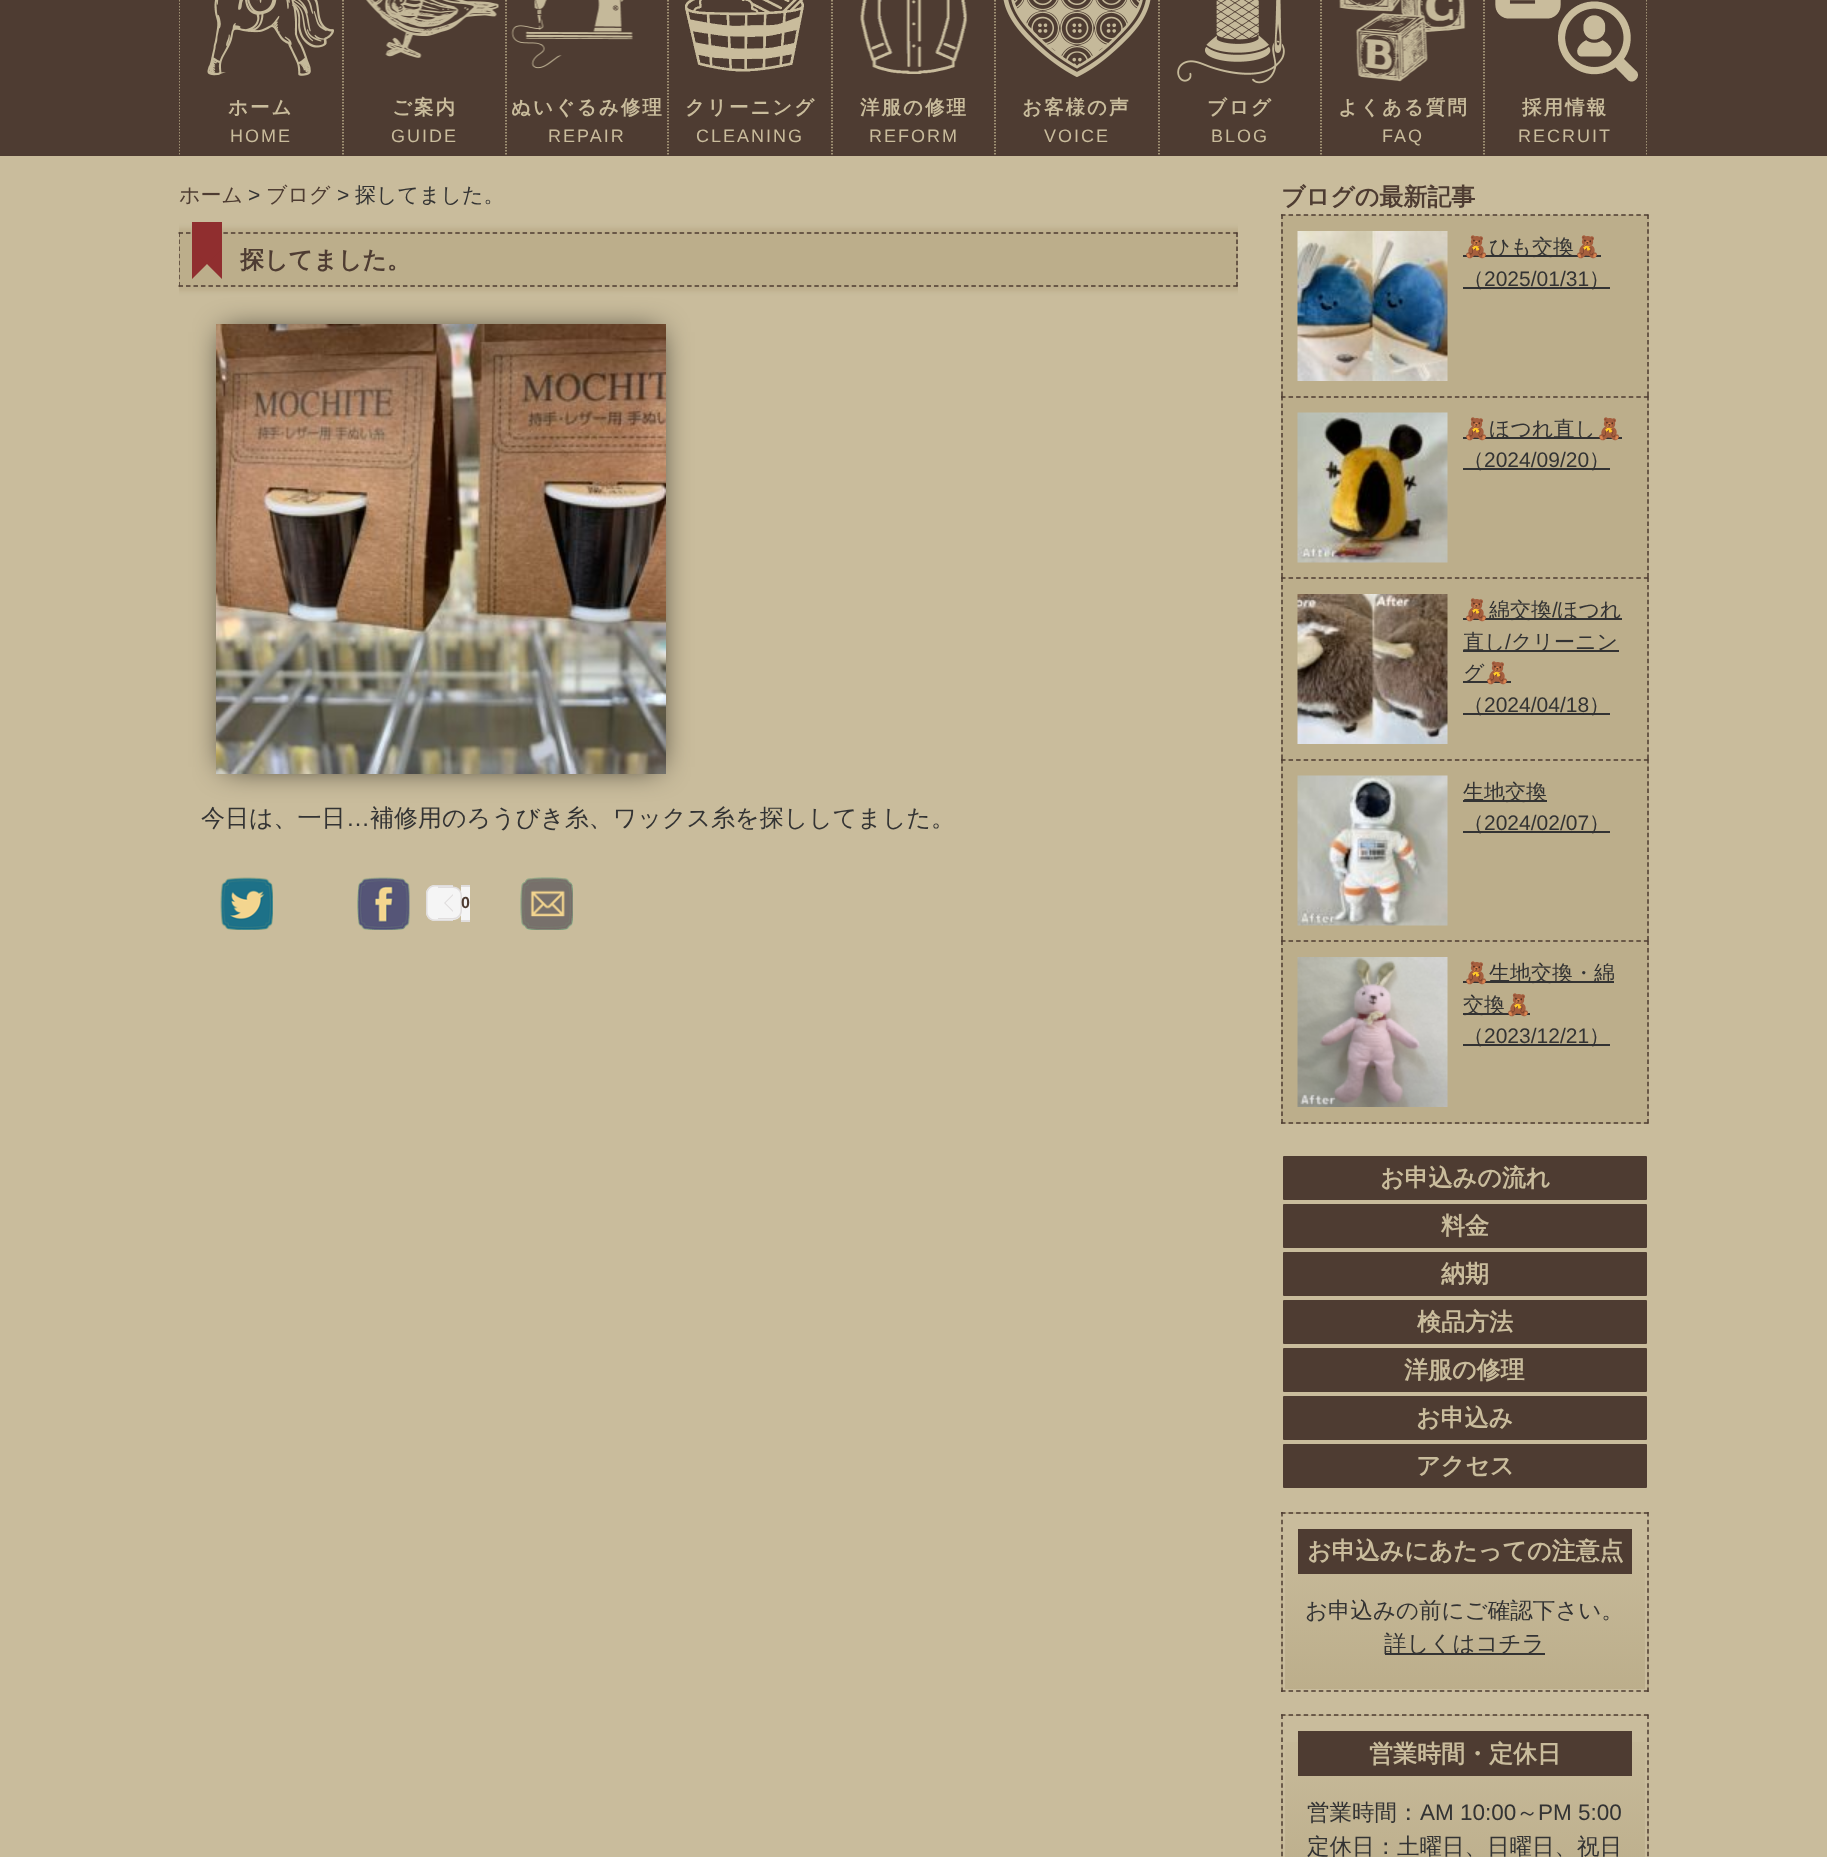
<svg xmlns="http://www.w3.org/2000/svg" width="1827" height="1857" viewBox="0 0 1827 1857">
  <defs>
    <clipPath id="clip1"><rect x="179" y="0" width="1470" height="156"/></clipPath>
    <clipPath id="clip2"><rect x="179" y="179" width="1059" height="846"/></clipPath>
    <clipPath id="clip3"><rect x="179" y="179" width="1059" height="846"/></clipPath>
    <linearGradient id="g1" gradientUnits="userSpaceOnUse" x1="1465" y1="1337" x2="1465" y2="1514"><stop offset="0" stop-color="rgb(201,188,156)"/><stop offset="1" stop-color="rgb(188,174,139)"/></linearGradient>
    <linearGradient id="g2" gradientUnits="userSpaceOnUse" x1="1465" y1="1514" x2="1465" y2="1691"><stop offset="0" stop-color="rgb(201,188,156)"/><stop offset="1" stop-color="rgb(188,174,139)"/></linearGradient>
    <linearGradient id="g3" gradientUnits="userSpaceOnUse" x1="1465" y1="1539" x2="1465" y2="1716"><stop offset="0" stop-color="rgb(201,188,156)"/><stop offset="1" stop-color="rgb(188,174,139)"/></linearGradient>
    <linearGradient id="g4" gradientUnits="userSpaceOnUse" x1="1465" y1="1716" x2="1465" y2="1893"><stop offset="0" stop-color="rgb(201,188,156)"/><stop offset="1" stop-color="rgb(188,174,139)"/></linearGradient>
  </defs>
  <rect width="100%" height="100%" fill="rgb(201,188,156)"/>
  <rect x="0" y="0" width="1827" height="156" fill="rgb(78,60,50)"/>
  <g clip-path="url(#clip1)">
    <path d="M179-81V156" fill="none" stroke="rgb(188,174,139)" stroke-width="1.5" stroke-dasharray="1.5 1.5"/>
  </g>
  <image x="207" y="0" width="127" height="76" href="pic1.png"/>
  <text x="228" y="114" font-family="WenQuanYi Zen Hei" font-size="19.5" font-weight="bold" letter-spacing="2" fill="rgb(201,188,156)">ホーム</text>
  <text x="230" y="142" font-family="Liberation Sans" font-size="18" letter-spacing="2" fill="rgb(201,188,156)">HOME</text>
  <path d="M343-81V156" fill="none" stroke="rgb(188,174,139)" stroke-width="1.5" stroke-dasharray="1.5 1.5"/>
  <image x="366" y="0" width="133" height="58" href="pic2.png"/>
  <text x="392" y="114" font-family="WenQuanYi Zen Hei" font-size="19.5" font-weight="bold" letter-spacing="2" fill="rgb(201,188,156)">ご案内</text>
  <text x="391" y="142" font-family="Liberation Sans" font-size="18" letter-spacing="2" fill="rgb(201,188,156)">GUIDE</text>
  <path d="M506-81V156" fill="none" stroke="rgb(188,174,139)" stroke-width="1.5" stroke-dasharray="1.5 1.5"/>
  <image x="511" y="0" width="122" height="69" href="pic3.png"/>
  <text x="511" y="114" font-family="WenQuanYi Zen Hei" font-size="19.5" font-weight="bold" letter-spacing="2" fill="rgb(201,188,156)">ぬいぐるみ修理</text>
  <text x="548" y="142" font-family="Liberation Sans" font-size="18" letter-spacing="2" fill="rgb(201,188,156)">REPAIR</text>
  <path d="M668-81V156" fill="none" stroke="rgb(188,174,139)" stroke-width="1.5" stroke-dasharray="1.5 1.5"/>
  <image x="685" y="0" width="119" height="72" href="pic4.png"/>
  <text x="685" y="114" font-family="WenQuanYi Zen Hei" font-size="19.5" font-weight="bold" letter-spacing="2" fill="rgb(201,188,156)">クリーニング</text>
  <text x="696" y="142" font-family="Liberation Sans" font-size="18" letter-spacing="2" fill="rgb(201,188,156)">CLEANING</text>
  <path d="M832-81V156" fill="none" stroke="rgb(188,174,139)" stroke-width="1.5" stroke-dasharray="1.5 1.5"/>
  <image x="860" y="0" width="108" height="74" href="pic5.png"/>
  <text x="860" y="114" font-family="WenQuanYi Zen Hei" font-size="19.5" font-weight="bold" letter-spacing="2" fill="rgb(201,188,156)">洋服の修理</text>
  <text x="869" y="142" font-family="Liberation Sans" font-size="18" letter-spacing="2" fill="rgb(201,188,156)">REFORM</text>
  <path d="M995-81V156" fill="none" stroke="rgb(188,174,139)" stroke-width="1.5" stroke-dasharray="1.5 1.5"/>
  <image x="1003" y="0" width="148" height="77" href="pic6.png"/>
  <text x="1022" y="114" font-family="WenQuanYi Zen Hei" font-size="19.5" font-weight="bold" letter-spacing="2" fill="rgb(201,188,156)">お客様の声</text>
  <text x="1044" y="142" font-family="Liberation Sans" font-size="18" letter-spacing="2" fill="rgb(201,188,156)">VOICE</text>
  <path d="M1159-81V156" fill="none" stroke="rgb(188,174,139)" stroke-width="1.5" stroke-dasharray="1.5 1.5"/>
  <image x="1177" y="0" width="108" height="84" href="pic7.png"/>
  <text x="1207" y="114" font-family="WenQuanYi Zen Hei" font-size="19.5" font-weight="bold" letter-spacing="2" fill="rgb(201,188,156)">ブログ</text>
  <text x="1211" y="142" font-family="Liberation Sans" font-size="18" letter-spacing="2" fill="rgb(201,188,156)">BLOG</text>
  <path d="M1321-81V156" fill="none" stroke="rgb(188,174,139)" stroke-width="1.5" stroke-dasharray="1.5 1.5"/>
  <image x="1339" y="0" width="127" height="82" href="pic8.png"/>
  <text x="1338" y="114" font-family="WenQuanYi Zen Hei" font-size="19.5" font-weight="bold" letter-spacing="2" fill="rgb(201,188,156)">よくある質問</text>
  <text x="1382" y="142" font-family="Liberation Sans" font-size="18" letter-spacing="2" fill="rgb(201,188,156)">FAQ</text>
  <path d="M1646-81V156" fill="none" stroke="rgb(188,174,139)" stroke-width="1.5" stroke-dasharray="1.5 1.5"/>
  <path d="M1484-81V156" fill="none" stroke="rgb(188,174,139)" stroke-width="1.5" stroke-dasharray="1.5 1.5"/>
  <rect x="1645" y="0" width="1" height="155" fill="rgb(78,60,50)"/>
  <image x="1495" y="0" width="143" height="82" href="pic9.png"/>
  <text x="1522" y="114" font-family="WenQuanYi Zen Hei" font-size="19.5" font-weight="bold" letter-spacing="2" fill="rgb(201,188,156)">採用情報</text>
  <text x="1518" y="142" font-family="Liberation Sans" font-size="18" letter-spacing="2" fill="rgb(201,188,156)">RECRUIT</text>
  <text x="179" y="202" font-family="WenQuanYi Zen Hei" font-size="21" font-weight="500" fill="rgb(78,60,50)">ホーム</text>
  <text x="248" y="202" font-family="Liberation Sans" font-size="21" fill="rgb(51,51,51)">&gt;</text>
  <text x="266" y="202" font-family="WenQuanYi Zen Hei" font-size="21" font-weight="500" fill="rgb(78,60,50)">ブログ</text>
  <text x="337" y="202" font-family="Liberation Sans" font-size="21" fill="rgb(51,51,51)">&gt;</text>
  <text x="355" y="202" font-family="WenQuanYi Zen Hei" font-size="21" font-weight="500" fill="rgb(51,51,51)">探してました。</text>
  <g clip-path="url(#clip2)">
    <rect x="174" y="228" width="1068" height="63" fill="rgb(188,174,139)" filter="blur(2px)"/>
  </g>
  <path d="M178.5 233H1237.5" fill="none" stroke="rgb(78,60,50)" stroke-width="1.5" stroke-dasharray="4.5 2.98"/>
  <path d="M1237 232.5V286.5" fill="none" stroke="rgb(78,60,50)" stroke-width="1.5" stroke-dasharray="4.5 2.56"/>
  <rect x="224" y="332" width="435" height="435" fill="rgba(0,0,0,0.8)" filter="blur(15px)"/>
  <path d="M178.5 286H1237.5" fill="none" stroke="rgb(78,60,50)" stroke-width="1.5" stroke-dasharray="4.5 2.98"/>
  <g clip-path="url(#clip3)">
    <path d="M179 232.5V286.5" fill="none" stroke="rgb(78,60,50)" stroke-width="1.5" stroke-dasharray="4.5 2.56"/>
  </g>
  <rect x="192" y="222" width="30" height="42" fill="rgb(144,46,47)"/>
  <text x="240" y="268" font-family="WenQuanYi Zen Hei" font-size="24" font-weight="bold" fill="rgb(78,60,50)">探してました。</text>
  <path d="M222 249V279L207 264ZM192 279V249L207 264Z" fill="rgb(144,46,47)"/>
  <image x="216" y="324" width="450" height="450" href="pic10.png"/>
  <text x="201" y="826" font-family="WenQuanYi Zen Hei" font-size="24" font-weight="500" fill="rgb(51,51,51)">今日は、一日</text>
  <text x="346" y="826" font-family="Liberation Sans" font-size="24" fill="rgb(51,51,51)">…</text>
  <text x="370" y="826" font-family="WenQuanYi Zen Hei" font-size="24" font-weight="500" fill="rgb(51,51,51)">補修用のろうびき糸、ワックス糸を探ししてました。</text>
  <image x="220" y="877" width="53" height="53" href="pic11.png"/>
  <image x="357" y="877" width="53" height="53" href="pic12.png"/>
  <path d="M435 885H453V921H435C430 921 426 917 426 912V894C426 889 430 885 435 885Z" fill="rgb(245,245,245)"/>
  <path d="M435 885H453V921H435C430 921 426 917 426 912V894C426 889 430 885 435 885ZM435 886.5H453V919.5H435C431 919.5 427.5 916 427.5 912V894C427.5 890 431 886.5 435 886.5Z" fill="rgb(224,221,221)" fill-rule="evenodd"/>
  <rect x="461" y="887" width="9" height="33" fill="rgb(245,245,245)"/>
  <rect x="461" y="885" width="9" height="2" fill="rgb(224,221,221)"/>
  <rect x="461" y="920" width="9" height="2" fill="rgb(224,221,221)"/>
  <path d="M438 887H453C458 887 462 891 462 896V911C462 916 458 920 453 920H438Z" fill="rgb(245,245,245)"/>
  <path d="M438 886.5H453C458 886.5 462 890.5 462 895.5V910.5C462 915.5 458 919.5 453 919.5H438ZM438 888H453C457 888 460.5 891.5 460.5 895.5V910.5C460.5 914.5 457 918 453 918H438Z" fill="rgb(224,221,221)" fill-rule="evenodd"/>
  <path d="M453 894V912L444 903Z" fill="rgb(224,221,221)"/>
  <path d="M453 895.5V910.5L445.5 903Z" fill="rgb(245,245,245)"/>
  <text x="461" y="908" font-family="Liberation Sans" font-size="16" font-weight="bold" fill="rgb(78,60,50)">0</text>
  <image x="520" y="877" width="53" height="53" href="pic13.png"/>
  <text x="1281" y="205" font-family="WenQuanYi Zen Hei" font-size="24" font-weight="bold" fill="rgb(78,60,50)">ブログの最新記事</text>
  <rect x="1281" y="215" width="368" height="909" fill="rgb(188,174,139)"/>
  <path d="M1281 215H1648.5" fill="none" stroke="rgb(78,60,50)" stroke-width="1.5" stroke-dasharray="4.5 3.06"/>
  <path d="M1648 214.5V396" fill="none" stroke="rgb(78,60,50)" stroke-width="1.5" stroke-dasharray="4.5 2.88"/>
  <path d="M1282 214.5V396" fill="none" stroke="rgb(78,60,50)" stroke-width="1.5" stroke-dasharray="4.5 2.88"/>
  <image x="1297" y="231" width="151" height="150" href="pic14.png"/>
  <rect x="1463" y="255" width="138" height="2" fill="rgb(51,51,51)"/>
  <text x="1463" y="254" font-family="Noto Color Emoji" font-size="21" fill="rgb(51,51,51)">🧸</text>
  <text x="1489" y="254" font-family="WenQuanYi Zen Hei" font-size="21" font-weight="500" fill="rgb(51,51,51)">ひも交換</text>
  <text x="1574" y="254" font-family="Noto Color Emoji" font-size="21" fill="rgb(51,51,51)">🧸</text>
  <rect x="1463" y="287" width="147" height="2" fill="rgb(51,51,51)"/>
  <text x="1463" y="286" font-family="WenQuanYi Zen Hei" font-size="21" font-weight="500" fill="rgb(51,51,51)">（</text>
  <text x="1484" y="286" font-family="Liberation Sans" font-size="21" fill="rgb(51,51,51)">2025/01/31</text>
  <text x="1589" y="286" font-family="WenQuanYi Zen Hei" font-size="21" font-weight="500" fill="rgb(51,51,51)">）</text>
  <path d="M1281 397H1648.5" fill="none" stroke="rgb(78,60,50)" stroke-width="1.5" stroke-dasharray="4.5 3.06"/>
  <path d="M1648 396V577.5" fill="none" stroke="rgb(78,60,50)" stroke-width="1.5" stroke-dasharray="4.5 2.88"/>
  <path d="M1282 396V577.5" fill="none" stroke="rgb(78,60,50)" stroke-width="1.5" stroke-dasharray="4.5 2.88"/>
  <image x="1297" y="412" width="151" height="151" href="pic15.png"/>
  <rect x="1463" y="437" width="159" height="2" fill="rgb(51,51,51)"/>
  <text x="1463" y="436" font-family="Noto Color Emoji" font-size="21" fill="rgb(51,51,51)">🧸</text>
  <text x="1489" y="436" font-family="WenQuanYi Zen Hei" font-size="21" font-weight="500" fill="rgb(51,51,51)">ほつれ直し</text>
  <text x="1596" y="436" font-family="Noto Color Emoji" font-size="21" fill="rgb(51,51,51)">🧸</text>
  <rect x="1463" y="468" width="147" height="2" fill="rgb(51,51,51)"/>
  <text x="1463" y="467" font-family="WenQuanYi Zen Hei" font-size="21" font-weight="500" fill="rgb(51,51,51)">（</text>
  <text x="1484" y="467" font-family="Liberation Sans" font-size="21" fill="rgb(51,51,51)">2024/09/20</text>
  <text x="1589" y="467" font-family="WenQuanYi Zen Hei" font-size="21" font-weight="500" fill="rgb(51,51,51)">）</text>
  <path d="M1281 578H1648.5" fill="none" stroke="rgb(78,60,50)" stroke-width="1.5" stroke-dasharray="4.5 3.06"/>
  <path d="M1648 577.5V759" fill="none" stroke="rgb(78,60,50)" stroke-width="1.5" stroke-dasharray="4.5 2.88"/>
  <path d="M1282 577.5V759" fill="none" stroke="rgb(78,60,50)" stroke-width="1.5" stroke-dasharray="4.5 2.88"/>
  <image x="1297" y="594" width="151" height="150" href="pic16.png"/>
  <rect x="1463" y="618" width="159" height="2" fill="rgb(51,51,51)"/>
  <text x="1463" y="617" font-family="Noto Color Emoji" font-size="21" fill="rgb(51,51,51)">🧸</text>
  <text x="1489" y="617" font-family="WenQuanYi Zen Hei" font-size="21" font-weight="500" fill="rgb(51,51,51)">綿交換</text>
  <text x="1552" y="617" font-family="Liberation Sans" font-size="21" fill="rgb(51,51,51)">/</text>
  <text x="1557" y="617" font-family="WenQuanYi Zen Hei" font-size="21" font-weight="500" fill="rgb(51,51,51)">ほつれ</text>
  <rect x="1463" y="650" width="156" height="2" fill="rgb(51,51,51)"/>
  <text x="1463" y="649" font-family="WenQuanYi Zen Hei" font-size="21" font-weight="500" fill="rgb(51,51,51)">直し</text>
  <text x="1505" y="649" font-family="Liberation Sans" font-size="21" fill="rgb(51,51,51)">/</text>
  <text x="1511" y="649" font-family="WenQuanYi Zen Hei" font-size="21" font-weight="500" fill="rgb(51,51,51)">クリーニン</text>
  <rect x="1463" y="681" width="48" height="2" fill="rgb(51,51,51)"/>
  <text x="1463" y="680" font-family="WenQuanYi Zen Hei" font-size="21" font-weight="500" fill="rgb(51,51,51)">グ</text>
  <text x="1484" y="680" font-family="Noto Color Emoji" font-size="21" fill="rgb(51,51,51)">🧸</text>
  <rect x="1463" y="713" width="147" height="2" fill="rgb(51,51,51)"/>
  <text x="1463" y="712" font-family="WenQuanYi Zen Hei" font-size="21" font-weight="500" fill="rgb(51,51,51)">（</text>
  <text x="1484" y="712" font-family="Liberation Sans" font-size="21" fill="rgb(51,51,51)">2024/04/18</text>
  <text x="1589" y="712" font-family="WenQuanYi Zen Hei" font-size="21" font-weight="500" fill="rgb(51,51,51)">）</text>
  <path d="M1281 760H1648.5" fill="none" stroke="rgb(78,60,50)" stroke-width="1.5" stroke-dasharray="4.5 3.06"/>
  <path d="M1648 759V940.5" fill="none" stroke="rgb(78,60,50)" stroke-width="1.5" stroke-dasharray="4.5 2.88"/>
  <path d="M1282 759V940.5" fill="none" stroke="rgb(78,60,50)" stroke-width="1.5" stroke-dasharray="4.5 2.88"/>
  <image x="1297" y="775" width="151" height="151" href="pic17.png"/>
  <rect x="1463" y="800" width="84" height="2" fill="rgb(51,51,51)"/>
  <text x="1463" y="799" font-family="WenQuanYi Zen Hei" font-size="21" font-weight="500" fill="rgb(51,51,51)">生地交換</text>
  <rect x="1463" y="831" width="147" height="2" fill="rgb(51,51,51)"/>
  <text x="1463" y="830" font-family="WenQuanYi Zen Hei" font-size="21" font-weight="500" fill="rgb(51,51,51)">（</text>
  <text x="1484" y="830" font-family="Liberation Sans" font-size="21" fill="rgb(51,51,51)">2024/02/07</text>
  <text x="1589" y="830" font-family="WenQuanYi Zen Hei" font-size="21" font-weight="500" fill="rgb(51,51,51)">）</text>
  <path d="M1281 941H1648.5" fill="none" stroke="rgb(78,60,50)" stroke-width="1.5" stroke-dasharray="4.5 3.06"/>
  <path d="M1648 940.5V1123.5" fill="none" stroke="rgb(78,60,50)" stroke-width="1.5" stroke-dasharray="4.5 2.94"/>
  <path d="M1281 1123H1648.5" fill="none" stroke="rgb(78,60,50)" stroke-width="1.5" stroke-dasharray="4.5 3.06"/>
  <path d="M1282 940.5V1123.5" fill="none" stroke="rgb(78,60,50)" stroke-width="1.5" stroke-dasharray="4.5 2.94"/>
  <image x="1297" y="957" width="151" height="150" href="pic18.png"/>
  <rect x="1463" y="981" width="151" height="2" fill="rgb(51,51,51)"/>
  <text x="1463" y="980" font-family="Noto Color Emoji" font-size="21" fill="rgb(51,51,51)">🧸</text>
  <text x="1489" y="980" font-family="WenQuanYi Zen Hei" font-size="21" font-weight="500" fill="rgb(51,51,51)">生地交換・綿</text>
  <rect x="1463" y="1013" width="67" height="2" fill="rgb(51,51,51)"/>
  <text x="1463" y="1012" font-family="WenQuanYi Zen Hei" font-size="21" font-weight="500" fill="rgb(51,51,51)">交換</text>
  <text x="1505" y="1012" font-family="Noto Color Emoji" font-size="21" fill="rgb(51,51,51)">🧸</text>
  <rect x="1463" y="1044" width="147" height="2" fill="rgb(51,51,51)"/>
  <text x="1463" y="1043" font-family="WenQuanYi Zen Hei" font-size="21" font-weight="500" fill="rgb(51,51,51)">（</text>
  <text x="1484" y="1043" font-family="Liberation Sans" font-size="21" fill="rgb(51,51,51)">2023/12/21</text>
  <text x="1589" y="1043" font-family="WenQuanYi Zen Hei" font-size="21" font-weight="500" fill="rgb(51,51,51)">）</text>
  <rect x="1282" y="1155" width="366" height="46" rx="2" fill="rgb(78,60,50)" stroke="rgb(201,188,156)" stroke-width="2"/>
  <text x="1380" y="1186" font-family="WenQuanYi Zen Hei" font-size="24" font-weight="bold" fill="rgb(201,188,156)">お申込みの流れ</text>
  <rect x="1282" y="1203" width="366" height="46" rx="2" fill="rgb(78,60,50)" stroke="rgb(201,188,156)" stroke-width="2"/>
  <text x="1441" y="1234" font-family="WenQuanYi Zen Hei" font-size="24" font-weight="bold" fill="rgb(201,188,156)">料金</text>
  <rect x="1282" y="1251" width="366" height="46" rx="2" fill="rgb(78,60,50)" stroke="rgb(201,188,156)" stroke-width="2"/>
  <text x="1441" y="1282" font-family="WenQuanYi Zen Hei" font-size="24" font-weight="bold" fill="rgb(201,188,156)">納期</text>
  <rect x="1282" y="1299" width="366" height="46" rx="2" fill="rgb(78,60,50)" stroke="rgb(201,188,156)" stroke-width="2"/>
  <text x="1417" y="1330" font-family="WenQuanYi Zen Hei" font-size="24" font-weight="bold" fill="rgb(201,188,156)">検品方法</text>
  <rect x="1282" y="1347" width="366" height="46" rx="2" fill="rgb(78,60,50)" stroke="rgb(201,188,156)" stroke-width="2"/>
  <text x="1404" y="1378" font-family="WenQuanYi Zen Hei" font-size="24" font-weight="bold" fill="rgb(201,188,156)">洋服の修理</text>
  <rect x="1282" y="1395" width="366" height="46" rx="2" fill="rgb(78,60,50)" stroke="rgb(201,188,156)" stroke-width="2"/>
  <text x="1416" y="1426" font-family="WenQuanYi Zen Hei" font-size="24" font-weight="bold" fill="rgb(201,188,156)">お申込み</text>
  <rect x="1282" y="1443" width="366" height="46" rx="2" fill="rgb(78,60,50)" stroke="rgb(201,188,156)" stroke-width="2"/>
  <text x="1416" y="1474" font-family="WenQuanYi Zen Hei" font-size="24" font-weight="bold" fill="rgb(201,188,156)">アクセス</text>
  <rect x="1281" y="1512" width="368" height="2" fill="url(#g1)"/>
  <rect x="1281" y="1540" width="368" height="151" fill="url(#g2)"/>
  <rect x="1284" y="1515" width="362" height="175" fill="none" stroke="rgb(201,188,156)" stroke-width="2"/>
  <path d="M1281 1513H1648.5" fill="none" stroke="rgb(78,60,50)" stroke-width="1.5" stroke-dasharray="4.5 3.06"/>
  <path d="M1648 1512V1692" fill="none" stroke="rgb(78,60,50)" stroke-width="1.5" stroke-dasharray="4.5 3.13"/>
  <path d="M1281 1691H1648.5" fill="none" stroke="rgb(78,60,50)" stroke-width="1.5" stroke-dasharray="4.5 3.06"/>
  <path d="M1282 1512V1692" fill="none" stroke="rgb(78,60,50)" stroke-width="1.5" stroke-dasharray="4.5 3.13"/>
  <rect x="1298" y="1529" width="334" height="45" fill="rgb(78,60,50)"/>
  <text x="1307" y="1559" font-family="WenQuanYi Zen Hei" font-size="24" font-weight="bold" fill="rgb(201,188,156)">お申込みにあたっての注意点</text>
  <text x="1305" y="1618" font-family="WenQuanYi Zen Hei" font-size="22.5" font-weight="500" fill="rgb(51,51,51)">お申込みの前にご確認下さい。</text>
  <rect x="1385" y="1653" width="160" height="2" fill="rgb(51,51,51)"/>
  <text x="1384" y="1651" font-family="WenQuanYi Zen Hei" font-size="22.5" font-weight="500" fill="rgb(51,51,51)">詳しくはコチラ</text>
  <rect x="1281" y="1715" width="368" height="1" fill="url(#g3)"/>
  <rect x="1281" y="1742" width="368" height="115" fill="url(#g4)"/>
  <rect x="1284" y="1717" width="362" height="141" fill="none" stroke="rgb(201,188,156)" stroke-width="2"/>
  <path d="M1281 1715H1648.5" fill="none" stroke="rgb(78,60,50)" stroke-width="1.5" stroke-dasharray="4.5 3.06"/>
  <path d="M1648 1714.5V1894.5" fill="none" stroke="rgb(78,60,50)" stroke-width="1.5" stroke-dasharray="4.5 3.13"/>
  <path d="M1282 1714.5V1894.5" fill="none" stroke="rgb(78,60,50)" stroke-width="1.5" stroke-dasharray="4.5 3.13"/>
  <rect x="1298" y="1731" width="334" height="45" fill="rgb(78,60,50)"/>
  <text x="1369" y="1762" font-family="WenQuanYi Zen Hei" font-size="24" font-weight="bold" fill="rgb(201,188,156)">営業時間・定休日</text>
  <text x="1307" y="1820" font-family="WenQuanYi Zen Hei" font-size="22.5" font-weight="500" fill="rgb(51,51,51)">営業時間：</text>
  <text x="1420" y="1820" font-family="Liberation Sans" font-size="22.5" fill="rgb(51,51,51)">AM 10:00</text>
  <text x="1516" y="1820" font-family="WenQuanYi Zen Hei" font-size="22.5" font-weight="500" fill="rgb(51,51,51)">～</text>
  <text x="1538" y="1820" font-family="Liberation Sans" font-size="22.5" fill="rgb(51,51,51)">PM 5:00</text>
  <text x="1307" y="1854" font-family="WenQuanYi Zen Hei" font-size="22.5" font-weight="500" fill="rgb(51,51,51)">定休日：土曜日、日曜日、祝日</text>
</svg>
